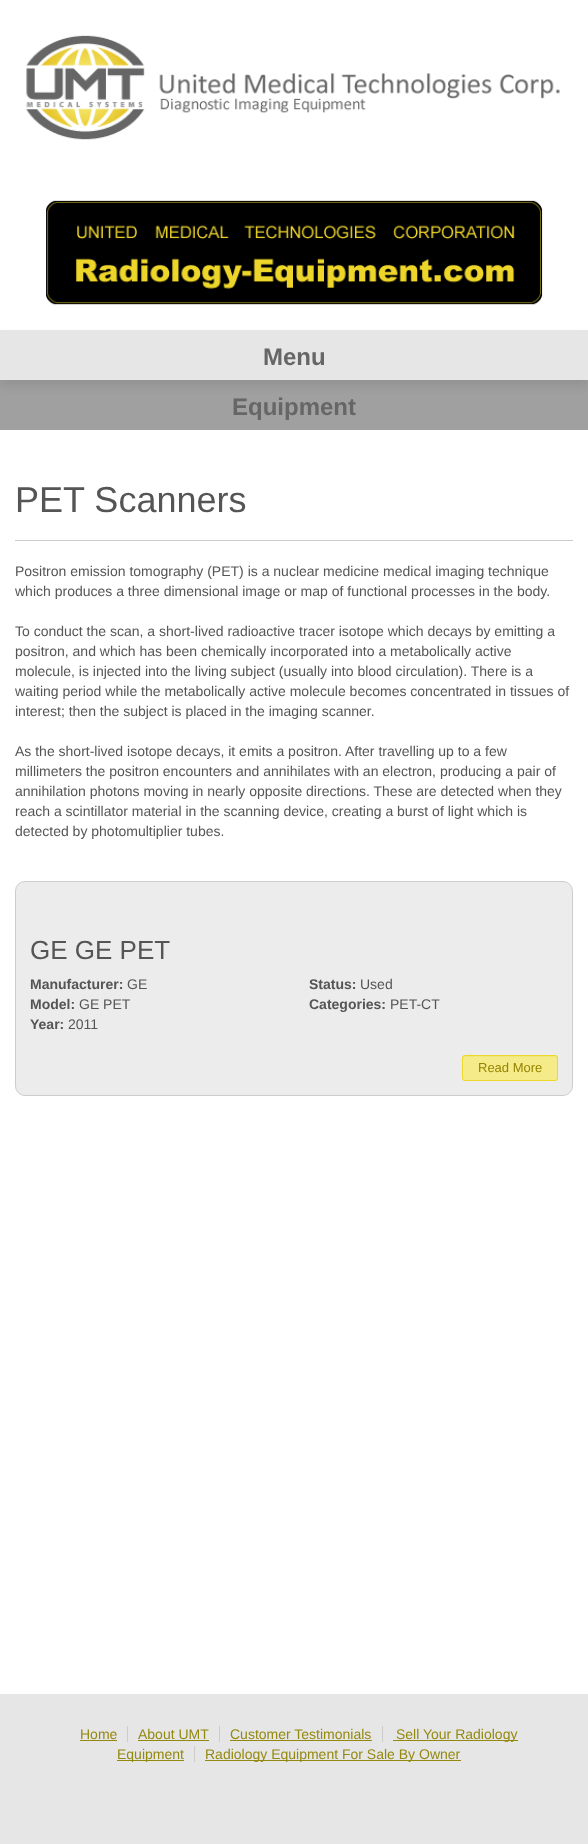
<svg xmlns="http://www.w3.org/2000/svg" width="588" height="1844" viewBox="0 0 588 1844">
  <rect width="100%" height="100%" fill="rgb(255,255,255)"/>
  <image x="26" y="35" width="534" height="105" href="pic1.png"/>
  <image x="46" y="200" width="497" height="105" href="pic2.png"/>
  <rect x="0" y="380" width="588" height="50" fill="rgb(160,160,160)"/>
  <rect x="0" y="336" width="588" height="50" fill="rgba(30,30,30,0.1)" filter="blur(4px)"/>
  <rect x="0" y="330" width="588" height="50" fill="rgb(230,230,230)"/>
  <g font-family="Liberation Sans" font-size="24" font-weight="bold" fill="rgb(102,102,102)">
    <text x="263" y="365">Menu</text>
    <text x="232" y="415">Equipment</text>
  </g>
  <text x="15" y="512" font-family="Liberation Sans" font-size="36" fill="rgb(85,85,85)">PET Scanners</text>
  <rect x="15" y="540" width="558" height="1" fill="rgb(204,204,204)"/>
  <g font-family="Liberation Sans" font-size="14" fill="rgb(85,85,85)">
    <text>
      <tspan x="15" y="576">Positron emission tomography (PET) is a nuclear medicine medical imaging technique</tspan>
      <tspan x="15" y="596">which produces a three dimensional image or map of functional processes in the body.</tspan>
    </text>
    <text>
      <tspan x="15" y="636">To conduct the scan, a short-lived radioactive tracer isotope which decays by emitting a</tspan>
      <tspan x="15" y="656">positron, and which has been chemically incorporated into a metabolically active</tspan>
      <tspan x="15" y="676">molecule, is injected into the living subject (usually into blood circulation). There is a</tspan>
      <tspan x="15" y="696">waiting period while the metabolically active molecule becomes concentrated in tissues of</tspan>
      <tspan x="15" y="716">interest; then the subject is placed in the imaging scanner.</tspan>
    </text>
    <text>
      <tspan x="15" y="756">As the short-lived isotope decays, it emits a positron. After travelling up to a few</tspan>
      <tspan x="15" y="776">millimeters the positron encounters and annihilates with an electron, producing a pair of</tspan>
      <tspan x="15" y="796">annihilation photons moving in nearly opposite directions. These are detected when they</tspan>
      <tspan x="15" y="816">reach a scintillator material in the scanning device, creating a burst of light which is</tspan>
      <tspan x="15" y="836">detected by photomultiplier tubes.</tspan>
    </text>
  </g>
  <rect x="15.5" y="881.5" width="557" height="214" rx="9.5" fill="rgb(236,236,236)" stroke="rgb(205,205,205)"/>
  <text x="30" y="959" font-family="Liberation Sans" font-size="26" fill="rgb(85,85,85)">GE GE PET</text>
  <text x="30" y="989" font-family="Liberation Sans" font-size="14" font-weight="bold" fill="rgb(85,85,85)">Manufacturer:</text>
  <text x="127" y="989" font-family="Liberation Sans" font-size="14" fill="rgb(85,85,85)">GE</text>
  <text x="30" y="1009" font-family="Liberation Sans" font-size="14" font-weight="bold" fill="rgb(85,85,85)">Model:</text>
  <text x="79" y="1009" font-family="Liberation Sans" font-size="14" fill="rgb(85,85,85)">GE PET</text>
  <text x="30" y="1029" font-family="Liberation Sans" font-size="14" font-weight="bold" fill="rgb(85,85,85)">Year:</text>
  <text x="68" y="1029" font-family="Liberation Sans" font-size="14" fill="rgb(85,85,85)">2011</text>
  <text x="309" y="989" font-family="Liberation Sans" font-size="14" font-weight="bold" fill="rgb(85,85,85)">Status:</text>
  <text x="360" y="989" font-family="Liberation Sans" font-size="14" fill="rgb(85,85,85)">Used</text>
  <text x="309" y="1009" font-family="Liberation Sans" font-size="14" font-weight="bold" fill="rgb(85,85,85)">Categories:</text>
  <text x="390" y="1009" font-family="Liberation Sans" font-size="14" fill="rgb(85,85,85)">PET-CT</text>
  <rect x="462" y="1055" width="96" height="26" rx="3" fill="rgb(245,235,137)"/>
  <path d="M465 1057H555C556 1057 557 1058 557 1059C557 1058 557 1056 555 1056H480C478 1056 463 1052 463 1059C463 1058 464 1057 465 1057Z" fill="rgb(236,232,127)"/>
  <rect x="462.5" y="1055.5" width="95" height="25" rx="2.5" fill="none" stroke="rgb(237,217,39)"/>
  <text x="478" y="1072" font-family="Liberation Sans" font-size="13" fill="rgb(150,132,0)">Read More</text>
  <rect x="0" y="1694" width="588" height="150" fill="rgb(230,230,230)"/>
  <text x="80" y="1739" font-family="Liberation Sans" font-size="14" fill="rgb(148,137,16)">Home</text>
  <rect x="127" y="1726" width="1" height="16" fill="rgb(204,204,204)"/>
  <rect x="80" y="1740" width="37" height="1" fill="rgb(148,137,16)"/>
  <text x="138" y="1739" font-family="Liberation Sans" font-size="14" fill="rgb(148,137,16)">About UMT</text>
  <rect x="219" y="1726" width="1" height="16" fill="rgb(204,204,204)"/>
  <rect x="138" y="1740" width="71" height="1" fill="rgb(148,137,16)"/>
  <text x="230" y="1739" font-family="Liberation Sans" font-size="14" fill="rgb(148,137,16)">Customer Testimonials</text>
  <rect x="382" y="1726" width="1" height="16" fill="rgb(204,204,204)"/>
  <rect x="230" y="1740" width="142" height="1" fill="rgb(148,137,16)"/>
  <rect x="393" y="1740" width="125" height="1" fill="rgb(148,137,16)"/>
  <text x="396" y="1739" font-family="Liberation Sans" font-size="14" fill="rgb(148,137,16)">Sell Your Radiology</text>
  <rect x="117" y="1760" width="67" height="1" fill="rgb(148,137,16)"/>
  <text x="117" y="1759" font-family="Liberation Sans" font-size="14" fill="rgb(148,137,16)">Equipment</text>
  <rect x="194" y="1746" width="1" height="16" fill="rgb(204,204,204)"/>
  <rect x="205" y="1760" width="256" height="1" fill="rgb(148,137,16)"/>
  <text x="205" y="1759" font-family="Liberation Sans" font-size="14" fill="rgb(148,137,16)">Radiology Equipment For Sale By Owner</text>
</svg>
